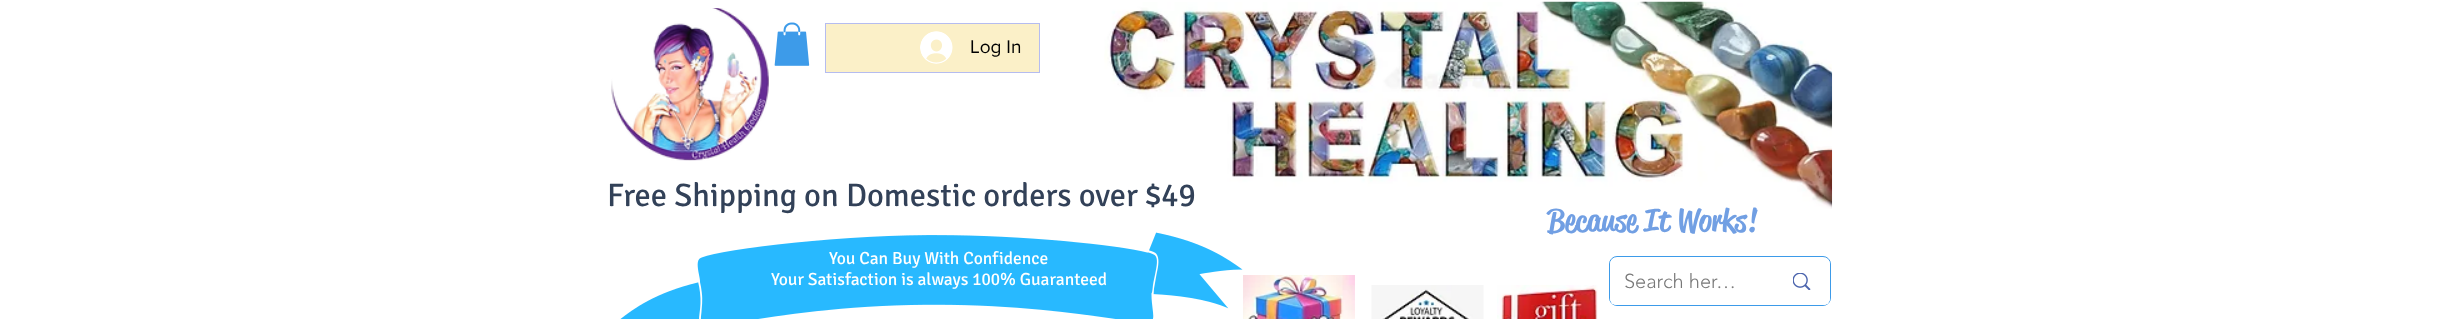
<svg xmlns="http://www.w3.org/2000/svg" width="2438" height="319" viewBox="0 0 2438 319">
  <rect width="100%" height="100%" fill="rgb(255,255,255)"/>
  <image x="611" y="8" width="158" height="153" href="pic1.png"/>
  <image x="774" y="22" width="36" height="44" href="pic2.png"/>
  <rect x="825.5" y="23.5" width="214" height="49" fill="rgb(251,240,200)" stroke="rgb(181,188,240)"/>
  <image x="920" y="31" width="33" height="33" href="pic3.png"/>
  <text x="970" y="53" font-family="'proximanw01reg'" font-size="19" fill="rgb(0,0,0)">Log In</text>
  <image x="1104" y="1" width="729" height="208" href="pic4.png"/>
  <text x="607" y="206" font-family="Signika" font-size="32.5" fill="rgb(50,65,88)">Free Shipping on Domestic orders over $49</text>
  <text x="1547" y="231" font-family="'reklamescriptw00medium'" font-size="31.25" font-weight="500" fill="rgb(113,159,227)">Because It Works!</text>
  <image x="620" y="232" width="623" height="87" href="pic5.png"/>
  <g font-family="Signika" font-size="17.5" fill="rgb(255,255,255)">
    <text x="829" y="264">You Can Buy With Confidence</text>
    <text x="771" y="285">Your Satisfaction is always 100% Guaranteed</text>
  </g>
  <image x="1243" y="275" width="112" height="44" href="pic6.png"/>
  <image x="1371" y="285" width="113" height="34" href="pic7.png"/>
  <image x="1497" y="285" width="101" height="34" href="pic8.png"/>
  <rect x="1609.5" y="256.5" width="221" height="49" rx="7.5" fill="none" stroke="rgb(61,155,233)"/>
  <rect x="1610" y="258" width="220" height="47" rx="6" fill="rgb(255,255,255)"/>
  <text x="1624" y="288" font-family="'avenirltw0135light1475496'" font-size="20" font-weight="300" fill="rgb(120,120,120)">Search her…</text>
  <image x="1793" y="273" width="18" height="17" href="pic9.png"/>
</svg>
